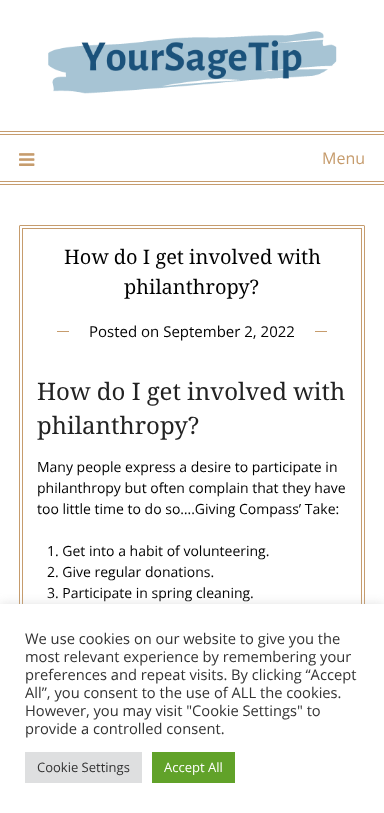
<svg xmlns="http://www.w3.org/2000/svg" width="384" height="813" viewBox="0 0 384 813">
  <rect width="100%" height="100%" fill="rgb(255,255,255)"/>
  <image x="48" y="31" width="289" height="63" href="pic1.png"/>
  <rect x="0" y="131" width="384" height="1" fill="rgb(198,156,109)"/>
  <rect x="0" y="134" width="384" height="1" fill="rgb(198,156,109)"/>
  <rect x="0" y="181" width="384" height="1" fill="rgb(198,156,109)"/>
  <rect x="0" y="184" width="384" height="1" fill="rgb(198,156,109)"/>
  <image x="19" y="153" width="16" height="13" href="pic2.png"/>
  <text x="322" y="164" font-family="Open Sans" font-size="16" fill="rgb(198,156,109)">Menu</text>
  <rect x="19.5" y="225.5" width="345" height="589" rx="0.5" fill="none" stroke="rgb(198,156,109)"/>
  <rect x="22.5" y="228.5" width="339" height="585" fill="none" stroke="rgb(198,156,109)"/>
  <g font-family="Noto Serif" font-size="20" fill="rgb(0,0,0)">
    <text x="64" y="264">How do I get involved with</text>
    <text x="124" y="294">philanthropy?</text>
  </g>
  <rect x="57" y="331" width="270" height="1" fill="rgb(198,156,109)"/>
  <rect x="69" y="331" width="246" height="1" fill="rgb(255,255,255)"/>
  <text x="89" y="337" font-family="Open Sans" font-size="15" fill="rgb(0,0,0)">Posted on September 2, 2022</text>
  <g font-family="Noto Serif" font-size="24" fill="rgb(34,34,34)">
    <text>
      <tspan x="37" y="400">How do I get involved with</tspan>
      <tspan x="37" y="434">philanthropy?</tspan>
    </text>
  </g>
  <g font-family="Open Sans" font-size="14" fill="rgb(0,0,0)">
    <text>
      <tspan x="37" y="472">Many people express a desire to participate in</tspan>
      <tspan x="37" y="493">philanthropy but often complain that they have</tspan>
      <tspan x="37" y="514">too little time to do so….Giving Compass’ Take:</tspan>
    </text>
    <text>
      <tspan x="47" y="556">1. Get into a habit of volunteering.</tspan>
      <tspan x="47" y="577">2. Give regular donations.</tspan>
      <tspan x="47" y="598">3. Participate in spring cleaning.</tspan>
    </text>
  </g>
  <rect x="0" y="603" width="384" height="209" fill="rgba(172,171,171,0.3)" filter="blur(5px)"/>
  <rect x="0" y="604" width="384" height="209" fill="rgb(255,255,255)"/>
  <g font-family="Open Sans" font-size="14.7" fill="rgb(51,51,51)">
    <text>
      <tspan x="25" y="644">We use cookies on our website to give you the</tspan>
      <tspan x="25" y="662">most relevant experience by remembering your</tspan>
      <tspan x="25" y="680">preferences and repeat visits. By clicking “Accept</tspan>
      <tspan x="25" y="698">All”, you consent to the use of ALL the cookies.</tspan>
      <tspan x="25" y="716">However, you may visit "Cookie Settings" to</tspan>
      <tspan x="25" y="734">provide a controlled consent.</tspan>
    </text>
  </g>
  <rect x="25" y="752" width="117" height="31" fill="rgb(222,223,224)"/>
  <text x="37" y="772" font-family="Open Sans" font-size="13" fill="rgb(51,51,51)">Cookie Settings</text>
  <rect x="152" y="752" width="83" height="31" fill="rgb(97,162,41)"/>
  <text x="164" y="772" font-family="Open Sans" font-size="13" fill="rgb(255,255,255)">Accept All</text>
</svg>
